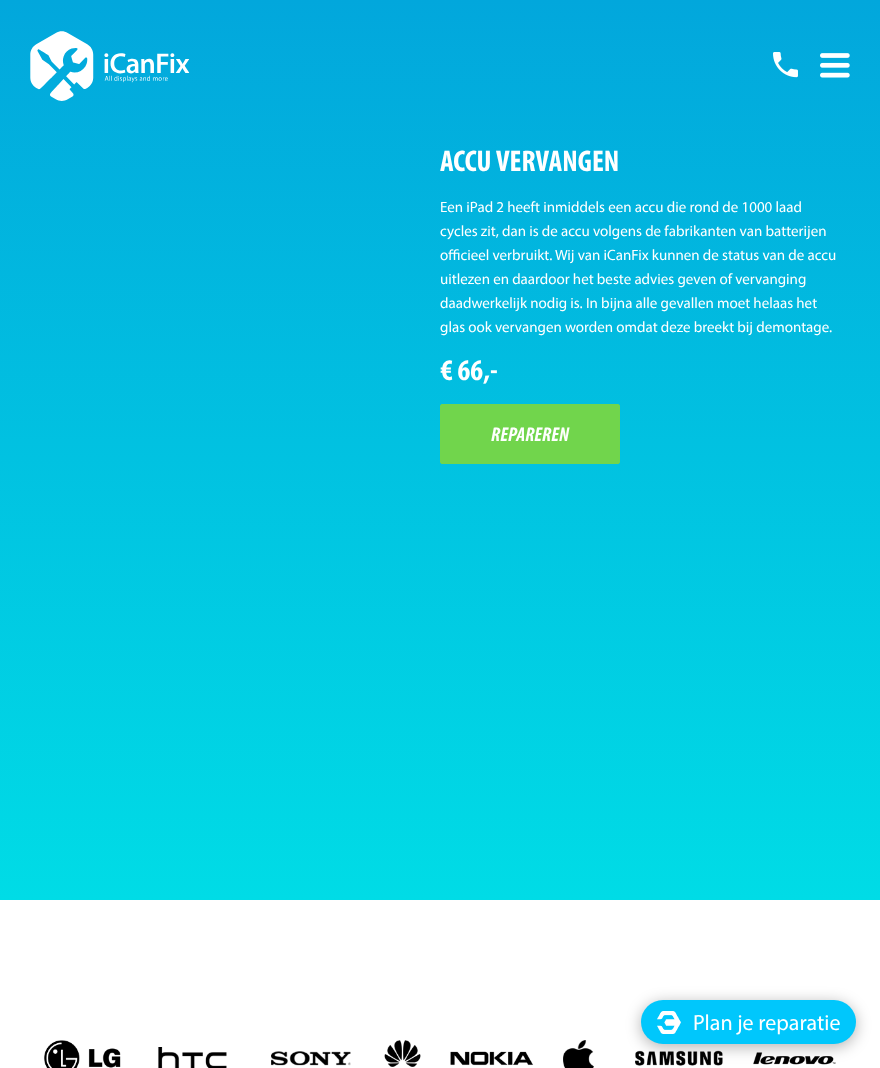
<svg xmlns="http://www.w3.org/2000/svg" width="880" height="1068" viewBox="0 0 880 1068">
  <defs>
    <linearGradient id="g1" gradientUnits="userSpaceOnUse" x1="440" y1="0" x2="440" y2="900"><stop offset="0" stop-color="rgb(2,167,220)"/><stop offset="1" stop-color="rgb(0,220,230)"/></linearGradient>
  </defs>
  <rect width="100%" height="100%" fill="rgb(255,255,255)"/>
  <rect x="0" y="0" width="880" height="900" fill="url(#g1)"/>
  <image x="30" y="31" width="160" height="70" href="pic1.png"/>
  <image x="773" y="52" width="25" height="26" href="pic2.png"/>
  <image x="820" y="53" width="30" height="25" href="pic3.png"/>
  <text x="440" y="171" font-family="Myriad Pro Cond" font-size="30" font-weight="bold" fill="rgb(255,255,255)">ACCU VERVANGEN</text>
  <g font-family="Myriad" font-size="15" fill="rgb(255,255,255)">
    <text>
      <tspan x="440" y="212">Een iPad 2 heeft inmiddels een accu die rond de 1000 laad</tspan>
      <tspan x="440" y="236">cycles zit, dan is de accu volgens de fabrikanten van batterijen</tspan>
      <tspan x="440" y="260">officieel verbruikt. Wij van iCanFix kunnen de status van de accu</tspan>
      <tspan x="440" y="284">uitlezen en daardoor het beste advies geven of vervanging</tspan>
      <tspan x="440" y="308">daadwerkelijk nodig is. In bijna alle gevallen moet helaas het</tspan>
      <tspan x="440" y="332">glas ook vervangen worden omdat deze breekt bij demontage.</tspan>
    </text>
  </g>
  <text x="440" y="380" font-family="Myriad Pro Cond" font-size="30" font-weight="bold" fill="rgb(255,255,255)">€ 66,-</text>
  <rect x="440.5" y="404.5" width="179" height="59" rx="1.5" fill="rgb(113,213,76)" stroke="rgb(113,213,76)"/>
  <text x="491" y="441" font-family="Myriad Pro Cond" font-size="20" font-weight="bold" font-style="italic" fill="rgb(255,255,255)">REPAREREN</text>
  <image x="44" y="1040" width="792" height="28" href="pic4.png"/>
  <rect x="641" y="1003" width="215" height="44" rx="22" fill="rgba(0,0,0,0.3)" filter="blur(7.5px)"/>
  <rect x="641" y="1000" width="215" height="44" rx="22" fill="rgb(0,199,252)"/>
  <image x="657" y="1011" width="24" height="23" href="pic5.png"/>
  <text x="693" y="1030" font-family="Myriad" font-size="22" fill="rgb(255,255,255)">Plan je reparatie</text>
</svg>
